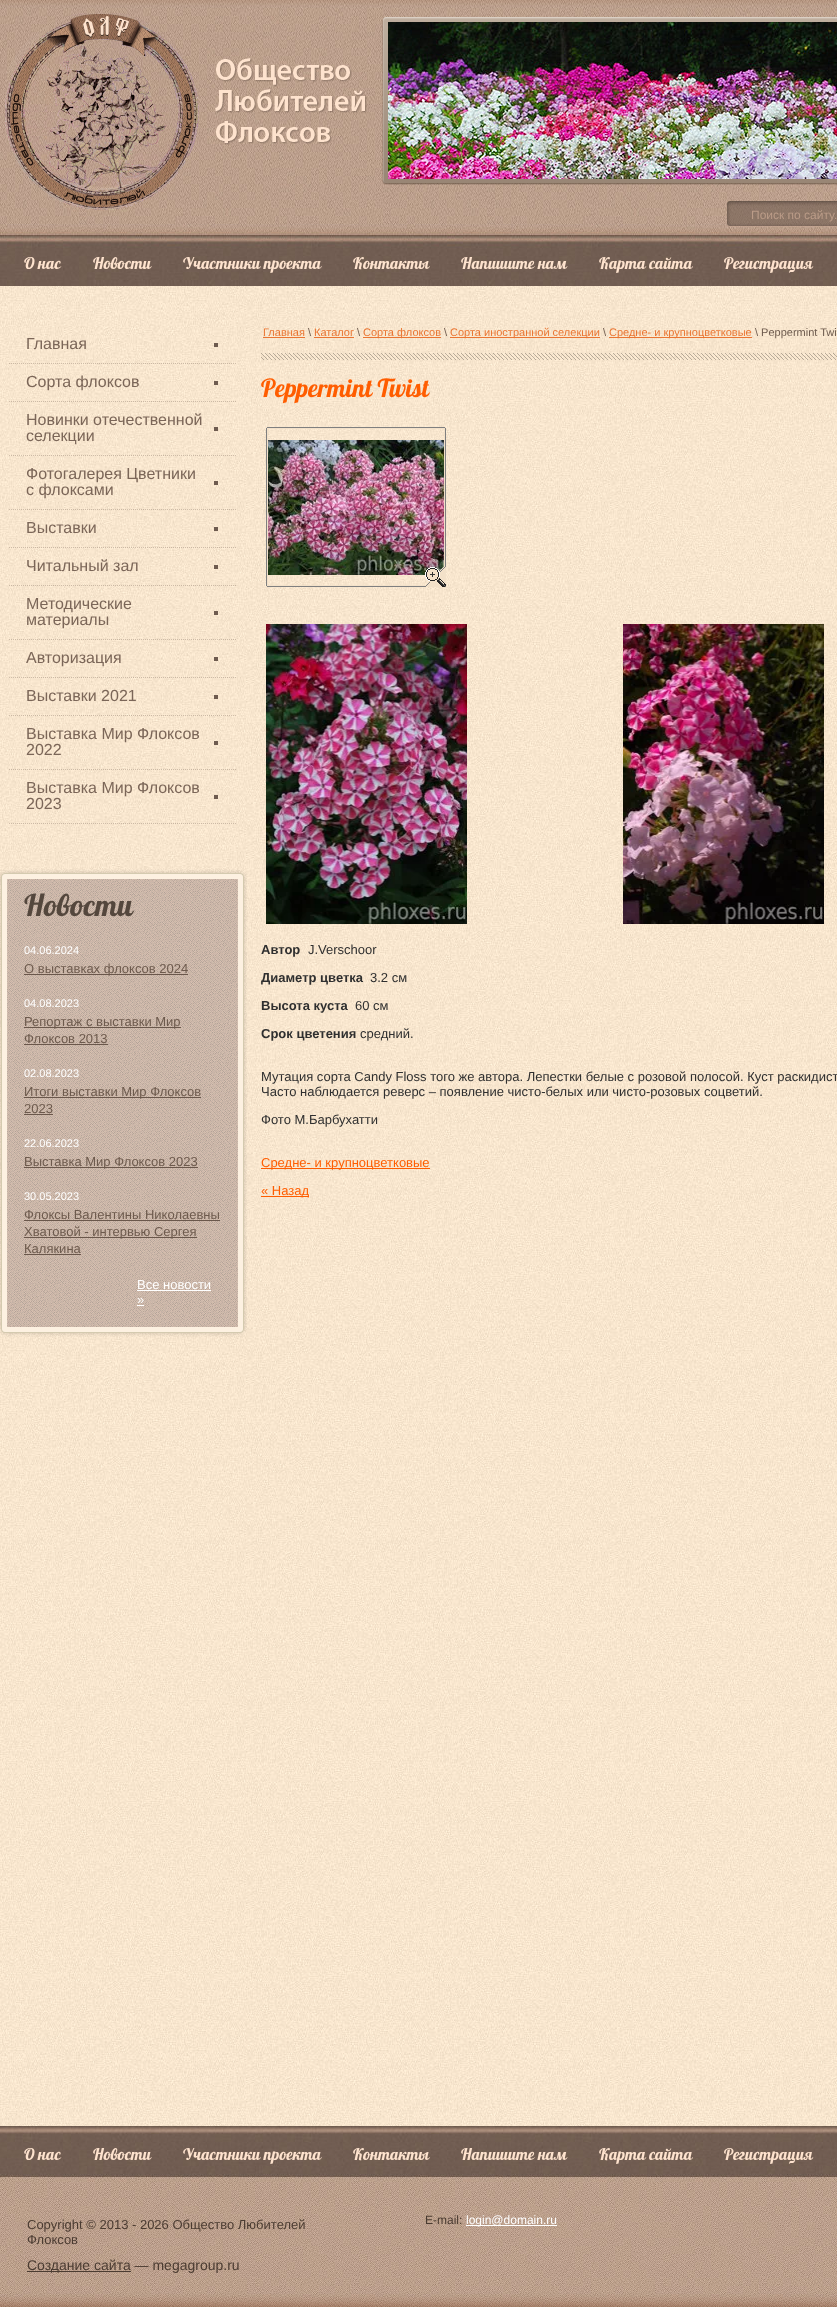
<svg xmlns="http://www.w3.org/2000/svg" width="837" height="2307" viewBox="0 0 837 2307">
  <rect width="100%" height="100%" fill="rgb(255,255,255)"/>
  <image x="0" y="286" width="837" height="1840" href="pic1.png"/>
  <image x="0" y="0" width="837" height="286" href="pic2.png"/>
  <image x="5" y="13" width="194" height="199" href="pic3.png"/>
  <image x="215" y="58" width="152" height="87" href="pic4.png"/>
  <image x="382" y="17" width="455" height="168" href="pic5.png"/>
  <image x="388" y="22" width="449" height="157" href="pic6.png"/>
  <image x="727" y="201" width="110" height="26" href="pic7.png"/>
  <text x="751" y="219" font-family="Liberation Sans" font-size="12" fill="rgb(187,156,136)">Поиск по сайту.</text>
  <g font-family="'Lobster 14'" font-size="16" fill="rgb(254,227,206)">
    <text x="24" y="269">О нас</text>
    <text x="93" y="269">Новости</text>
    <text x="183" y="269">Участники проекта</text>
    <text x="353" y="269">Контакты</text>
    <text x="461" y="269">Напишите нам</text>
    <text x="599" y="269">Карта сайта</text>
    <text x="724" y="269">Регистрация</text>
  </g>
  <image x="9" y="363" width="227" height="1" href="pic8.png"/>
  <rect x="214" y="343" width="4" height="4" fill="rgb(110,91,79)"/>
  <text x="26" y="349" font-family="Liberation Sans" font-size="16" fill="rgb(123,102,88)">Главная</text>
  <image x="9" y="401" width="227" height="1" href="pic9.png"/>
  <rect x="214" y="381" width="4" height="4" fill="rgb(110,91,79)"/>
  <text x="26" y="387" font-family="Liberation Sans" font-size="16" fill="rgb(123,102,88)">Сорта флоксов</text>
  <image x="9" y="455" width="227" height="1" href="pic10.png"/>
  <rect x="214" y="427" width="4" height="4" fill="rgb(110,91,79)"/>
  <g font-family="Liberation Sans" font-size="16" fill="rgb(123,102,88)">
    <text>
      <tspan x="26" y="425">Новинки отечественной</tspan>
      <tspan x="26" y="441">селекции</tspan>
    </text>
  </g>
  <image x="9" y="509" width="227" height="1" href="pic11.png"/>
  <rect x="214" y="481" width="4" height="4" fill="rgb(110,91,79)"/>
  <g font-family="Liberation Sans" font-size="16" fill="rgb(123,102,88)">
    <text>
      <tspan x="26" y="479">Фотогалерея Цветники</tspan>
      <tspan x="26" y="495">с флоксами</tspan>
    </text>
  </g>
  <image x="9" y="547" width="227" height="1" href="pic12.png"/>
  <rect x="214" y="527" width="4" height="4" fill="rgb(110,91,79)"/>
  <text x="26" y="533" font-family="Liberation Sans" font-size="16" fill="rgb(123,102,88)">Выставки</text>
  <image x="9" y="585" width="227" height="1" href="pic13.png"/>
  <rect x="214" y="565" width="4" height="4" fill="rgb(110,91,79)"/>
  <text x="26" y="571" font-family="Liberation Sans" font-size="16" fill="rgb(123,102,88)">Читальный зал</text>
  <image x="9" y="639" width="227" height="1" href="pic14.png"/>
  <rect x="214" y="611" width="4" height="4" fill="rgb(110,91,79)"/>
  <g font-family="Liberation Sans" font-size="16" fill="rgb(123,102,88)">
    <text>
      <tspan x="26" y="609">Методические</tspan>
      <tspan x="26" y="625">материалы</tspan>
    </text>
  </g>
  <image x="9" y="677" width="227" height="1" href="pic15.png"/>
  <rect x="214" y="657" width="4" height="4" fill="rgb(110,91,79)"/>
  <text x="26" y="663" font-family="Liberation Sans" font-size="16" fill="rgb(123,102,88)">Авторизация</text>
  <image x="9" y="715" width="227" height="1" href="pic16.png"/>
  <rect x="214" y="695" width="4" height="4" fill="rgb(110,91,79)"/>
  <text x="26" y="701" font-family="Liberation Sans" font-size="16" fill="rgb(123,102,88)">Выставки 2021</text>
  <image x="9" y="769" width="227" height="1" href="pic17.png"/>
  <rect x="214" y="741" width="4" height="4" fill="rgb(110,91,79)"/>
  <g font-family="Liberation Sans" font-size="16" fill="rgb(123,102,88)">
    <text>
      <tspan x="26" y="739">Выставка Мир Флоксов</tspan>
      <tspan x="26" y="755">2022</tspan>
    </text>
  </g>
  <image x="9" y="823" width="227" height="1" href="pic18.png"/>
  <rect x="214" y="795" width="4" height="4" fill="rgb(110,91,79)"/>
  <g font-family="Liberation Sans" font-size="16" fill="rgb(123,102,88)">
    <text>
      <tspan x="26" y="793">Выставка Мир Флоксов</tspan>
      <tspan x="26" y="809">2023</tspan>
    </text>
  </g>
  <image x="0" y="879" width="247" height="448" href="pic19.png"/>
  <image x="0" y="869" width="247" height="10" href="pic20.png"/>
  <image x="0" y="1327" width="247" height="10" href="pic21.png"/>
  <text x="24" y="916" font-family="'Lobster 14'" font-size="30" fill="rgb(84,71,61)">Новости</text>
  <text x="24" y="954" font-family="Liberation Sans" font-size="11" fill="rgb(255,255,255)">04.06.2024</text>
  <rect x="24" y="974" width="164" height="1" fill="rgb(106,87,75)"/>
  <text x="24" y="973" font-family="Liberation Sans" font-size="13" fill="rgb(109,90,77)">О выставках флоксов 2024</text>
  <text x="24" y="1007" font-family="Liberation Sans" font-size="11" fill="rgb(255,255,255)">04.08.2023</text>
  <rect x="24" y="1027" width="157" height="1" fill="rgb(106,87,75)"/>
  <g font-family="Liberation Sans" font-size="13" fill="rgb(109,90,77)">
    <text>
      <tspan x="24" y="1026">Репортаж с выставки Мир</tspan>
      <tspan x="24" y="1043">Флоксов 2013</tspan>
    </text>
  </g>
  <rect x="24" y="1044" width="84" height="1" fill="rgb(106,87,75)"/>
  <text x="24" y="1077" font-family="Liberation Sans" font-size="11" fill="rgb(255,255,255)">02.08.2023</text>
  <rect x="24" y="1097" width="177" height="1" fill="rgb(106,87,75)"/>
  <g font-family="Liberation Sans" font-size="13" fill="rgb(109,90,77)">
    <text>
      <tspan x="24" y="1096">Итоги выставки Мир Флоксов</tspan>
      <tspan x="24" y="1113">2023</tspan>
    </text>
  </g>
  <rect x="24" y="1114" width="29" height="1" fill="rgb(106,87,75)"/>
  <text x="24" y="1147" font-family="Liberation Sans" font-size="11" fill="rgb(255,255,255)">22.06.2023</text>
  <rect x="24" y="1167" width="174" height="1" fill="rgb(106,87,75)"/>
  <text x="24" y="1166" font-family="Liberation Sans" font-size="13" fill="rgb(109,90,77)">Выставка Мир Флоксов 2023</text>
  <text x="24" y="1200" font-family="Liberation Sans" font-size="11" fill="rgb(255,255,255)">30.05.2023</text>
  <text x="24" y="1219" font-family="Liberation Sans" font-size="13" fill="rgb(109,90,77)">Флоксы Валентины Николаевны</text>
  <rect x="24" y="1220" width="196" height="1" fill="rgb(106,87,75)"/>
  <rect x="24" y="1237" width="173" height="1" fill="rgb(106,87,75)"/>
  <g font-family="Liberation Sans" font-size="13" fill="rgb(109,90,77)">
    <text>
      <tspan x="24" y="1236">Хватовой - интервью Сергея</tspan>
      <tspan x="24" y="1253">Калякина</tspan>
    </text>
  </g>
  <rect x="24" y="1254" width="57" height="1" fill="rgb(106,87,75)"/>
  <text x="137" y="1289" font-family="Liberation Sans" font-size="13" fill="rgb(255,255,255)">Все новости</text>
  <rect x="137" y="1290" width="74" height="1" fill="rgb(255,255,255)"/>
  <text x="137" y="1304" font-family="Liberation Sans" font-size="13" fill="rgb(255,255,255)">»</text>
  <rect x="137" y="1305" width="7" height="1" fill="rgb(255,255,255)"/>
  <image x="261" y="353" width="576" height="7" href="pic22.png"/>
  <text x="263" y="336" font-family="Liberation Sans" font-size="11" fill="rgb(234,117,50)">Главная</text>
  <rect x="263" y="337" width="42" height="1" fill="rgb(234,117,50)"/>
  <text x="308" y="336" font-family="Liberation Sans" font-size="11" fill="rgb(109,90,77)">\</text>
  <text x="314" y="336" font-family="Liberation Sans" font-size="11" fill="rgb(234,117,50)">Каталог</text>
  <rect x="314" y="337" width="40" height="1" fill="rgb(234,117,50)"/>
  <text x="357" y="336" font-family="Liberation Sans" font-size="11" fill="rgb(109,90,77)">\</text>
  <rect x="363" y="337" width="78" height="1" fill="rgb(234,117,50)"/>
  <text x="363" y="336" font-family="Liberation Sans" font-size="11" fill="rgb(234,117,50)">Сорта флоксов</text>
  <text x="444" y="336" font-family="Liberation Sans" font-size="11" fill="rgb(109,90,77)">\</text>
  <rect x="450" y="337" width="150" height="1" fill="rgb(234,117,50)"/>
  <text x="450" y="336" font-family="Liberation Sans" font-size="11" fill="rgb(234,117,50)">Сорта иностранной селекции</text>
  <text x="603" y="336" font-family="Liberation Sans" font-size="11" fill="rgb(109,90,77)">\</text>
  <rect x="609" y="337" width="143" height="1" fill="rgb(234,117,50)"/>
  <text x="609" y="336" font-family="Liberation Sans" font-size="11" fill="rgb(234,117,50)">Средне- и крупноцветковые</text>
  <text x="755" y="336" font-family="Liberation Sans" font-size="11" fill="rgb(109,90,77)">\ Peppermint Twi</text>
  <text x="261" y="397" font-family="'Lobster 14'" font-size="25" fill="rgb(255,93,0)">Peppermint Twist</text>
  <image x="266" y="427" width="180" height="160" href="pic23.png"/>
  <image x="266" y="624" width="201" height="300" href="pic24.png"/>
  <image x="623" y="624" width="201" height="300" href="pic25.png"/>
  <text x="261" y="954" font-family="Liberation Sans" font-size="13" font-weight="bold" fill="rgb(47,47,47)">Автор</text>
  <text x="308" y="954" font-family="Liberation Sans" font-size="13" fill="rgb(47,47,47)">J.Verschoor</text>
  <text x="261" y="982" font-family="Liberation Sans" font-size="13" font-weight="bold" fill="rgb(47,47,47)">Диаметр цветка</text>
  <text x="370" y="982" font-family="Liberation Sans" font-size="13" fill="rgb(47,47,47)">3.2 см</text>
  <text x="261" y="1010" font-family="Liberation Sans" font-size="13" font-weight="bold" fill="rgb(47,47,47)">Высота куста</text>
  <text x="355" y="1010" font-family="Liberation Sans" font-size="13" fill="rgb(47,47,47)">60 см</text>
  <text x="261" y="1038" font-family="Liberation Sans" font-size="13" font-weight="bold" fill="rgb(47,47,47)">Срок цветения</text>
  <g font-family="Liberation Sans" font-size="13" fill="rgb(47,47,47)">
    <text x="360" y="1038">средний.</text>
    <text>
      <tspan x="261" y="1081">Мутация сорта Candy Floss того же автора. Лепестки белые с розовой полосой. Куст раскидист</tspan>
      <tspan x="261" y="1096">Часто наблюдается реверс – появление чисто-белых или чисто-розовых соцветий.</tspan>
    </text>
    <text x="261" y="1124">Фото М.Барбухатти</text>
  </g>
  <rect x="261" y="1168" width="169" height="1" fill="rgb(255,93,0)"/>
  <text x="261" y="1167" font-family="Liberation Sans" font-size="13" fill="rgb(255,93,0)">Средне- и крупноцветковые</text>
  <rect x="261" y="1196" width="48" height="1" fill="rgb(255,93,0)"/>
  <text x="261" y="1195" font-family="Liberation Sans" font-size="13" fill="rgb(255,93,0)">« Назад</text>
  <image x="0" y="2126" width="837" height="181" href="pic26.png"/>
  <g font-family="'Lobster 14'" font-size="16" fill="rgb(254,227,206)">
    <text x="24" y="2160">О нас</text>
    <text x="93" y="2160">Новости</text>
    <text x="183" y="2160">Участники проекта</text>
    <text x="353" y="2160">Контакты</text>
    <text x="461" y="2160">Напишите нам</text>
    <text x="599" y="2160">Карта сайта</text>
    <text x="724" y="2160">Регистрация</text>
  </g>
  <g font-family="Liberation Sans" font-size="13" fill="rgb(74,59,49)">
    <text>
      <tspan x="27" y="2229">Copyright © 2013 - 2026 Общество Любителей</tspan>
      <tspan x="27" y="2244">Флоксов</tspan>
    </text>
  </g>
  <text x="425" y="2224" font-family="Liberation Sans" font-size="12" fill="rgb(74,59,49)">E-mail:</text>
  <rect x="466" y="2225" width="91" height="1" fill="rgb(255,255,255)"/>
  <text x="466" y="2224" font-family="Liberation Sans" font-size="12" fill="rgb(255,255,255)">login@domain.ru</text>
  <rect x="27" y="2271" width="104" height="1" fill="rgb(74,59,49)"/>
  <text x="27" y="2270" font-family="Liberation Sans" font-size="14" fill="rgb(74,59,49)">Создание сайта — megagroup.ru</text>
</svg>
